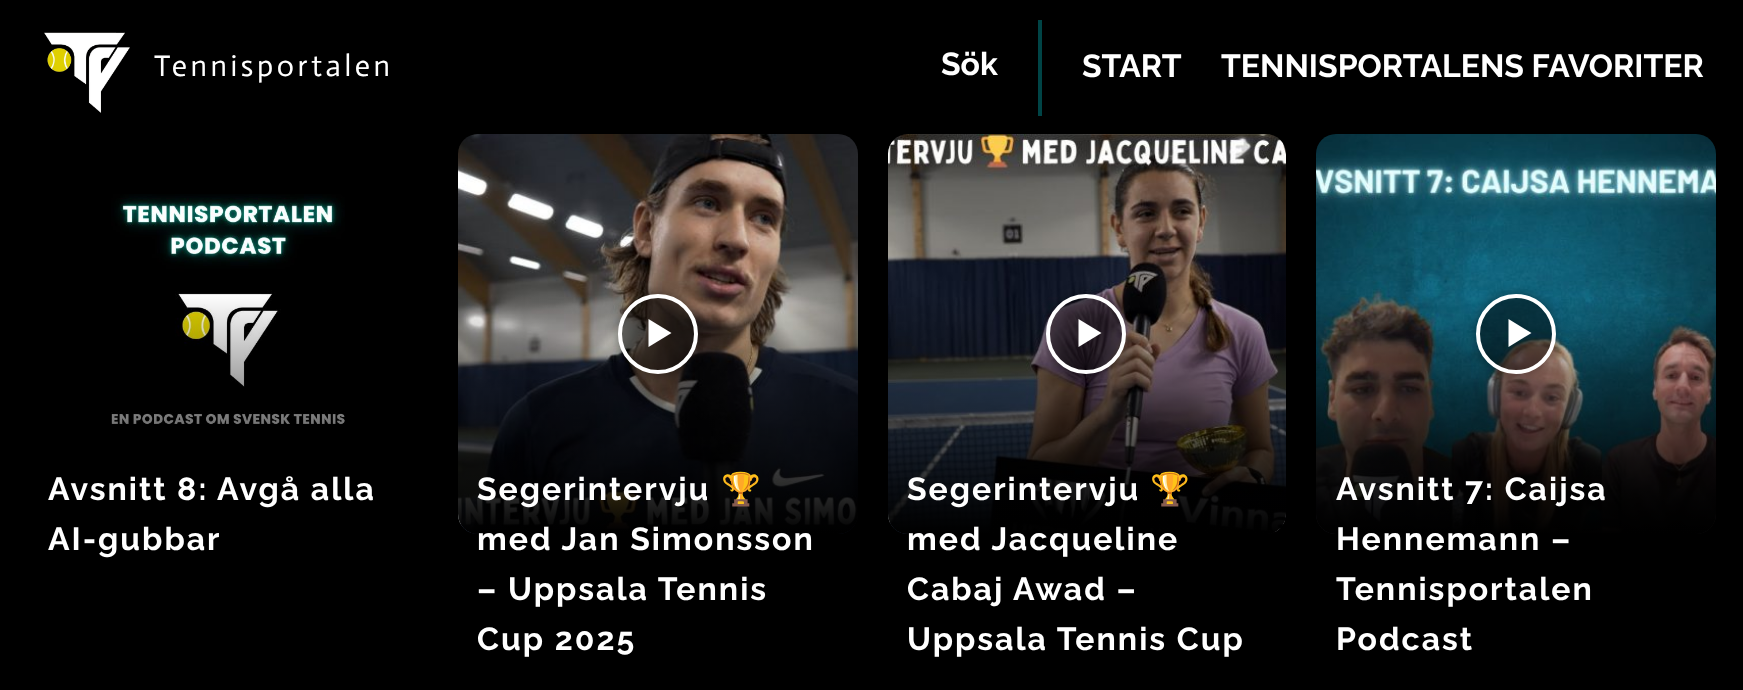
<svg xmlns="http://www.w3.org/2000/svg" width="1743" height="690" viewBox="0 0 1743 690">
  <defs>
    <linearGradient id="g1" gradientUnits="userSpaceOnUse" x1="228" y1="534" x2="228" y2="134"><stop offset="0" stop-color="rgb(0,0,0)"/><stop offset="0.6" stop-color="rgb(0,0,0)" stop-opacity="0"/><stop offset="1" stop-color="rgb(0,0,0)" stop-opacity="0"/></linearGradient>
    <linearGradient id="g2" gradientUnits="userSpaceOnUse" x1="658" y1="534" x2="658" y2="134"><stop offset="0" stop-color="rgb(0,0,0)"/><stop offset="0.6" stop-color="rgb(0,0,0)" stop-opacity="0"/><stop offset="1" stop-color="rgb(0,0,0)" stop-opacity="0"/></linearGradient>
    <clipPath id="clip1"><path d="M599 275H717V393H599ZM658 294C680 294 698 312 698 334C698 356 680 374 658 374C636 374 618 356 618 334C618 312 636 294 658 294Z" clip-rule="evenodd"/></clipPath>
    <linearGradient id="g3" gradientUnits="userSpaceOnUse" x1="1087" y1="534" x2="1087" y2="134"><stop offset="0" stop-color="rgb(0,0,0)"/><stop offset="0.6" stop-color="rgb(0,0,0)" stop-opacity="0"/><stop offset="1" stop-color="rgb(0,0,0)" stop-opacity="0"/></linearGradient>
    <clipPath id="clip2"><path d="M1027 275H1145V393H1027ZM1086 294C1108 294 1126 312 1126 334C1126 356 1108 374 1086 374C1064 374 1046 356 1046 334C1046 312 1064 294 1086 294Z" clip-rule="evenodd"/></clipPath>
    <linearGradient id="g4" gradientUnits="userSpaceOnUse" x1="1516" y1="534" x2="1516" y2="134"><stop offset="0" stop-color="rgb(0,0,0)"/><stop offset="0.6" stop-color="rgb(0,0,0)" stop-opacity="0"/><stop offset="1" stop-color="rgb(0,0,0)" stop-opacity="0"/></linearGradient>
    <clipPath id="clip3"><path d="M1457 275H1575V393H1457ZM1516 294C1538 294 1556 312 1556 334C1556 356 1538 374 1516 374C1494 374 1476 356 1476 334C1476 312 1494 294 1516 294Z" clip-rule="evenodd"/></clipPath>
  </defs>
  <rect width="100%" height="100%" fill="rgb(0,0,0)"/>
  <image x="44" y="32" width="86" height="81" href="pic1.png"/>
  <text x="154" y="76" font-family="Actor" font-size="30" letter-spacing="3.6" fill="rgb(255,255,255)">Tennisportalen</text>
  <text x="941" y="75" font-family="Raleway" font-size="32" font-weight="bold" fill="rgb(255,255,255)">Sök</text>
  <rect x="1038" y="20" width="4" height="96" fill="rgb(0,68,70)"/>
  <g font-family="Raleway" font-size="32" font-weight="bold" fill="rgb(255,255,255)">
    <text x="1082" y="77">START</text>
    <text x="1221" y="77">TENNISPORTALENS FAVORITER</text>
  </g>
  <image x="111" y="194" width="234" height="231" href="pic2.png"/>
  <rect x="28" y="134" width="400" height="400" rx="20" fill="url(#g1)"/>
  <g font-family="Raleway" font-size="32" font-weight="bold" letter-spacing="2" fill="rgb(255,255,255)">
    <text>
      <tspan x="48" y="500">Avsnitt 8: Avgå alla</tspan>
      <tspan x="48" y="550">AI-gubbar</tspan>
    </text>
  </g>
  <image x="458" y="134" width="400" height="400" href="pic3.png"/>
  <rect x="458" y="134" width="400" height="400" rx="20" fill="url(#g2)"/>
  <g clip-path="url(#clip1)">
    <rect x="618" y="294" width="80" height="80" rx="40" fill="rgba(0,0,0,0.4)" filter="blur(6px)"/>
  </g>
  <circle cx="658" cy="334" r="38" fill="rgba(0,0,0,0.48)" stroke="rgb(255,255,255)" stroke-width="4"/>
  <path d="M648.5 319V347L671.5 333Z" fill="rgb(255,255,255)"/>
  <text x="477" y="500" font-family="Raleway" font-size="32" font-weight="bold" letter-spacing="2" fill="rgb(255,255,255)">Segerintervju</text>
  <text x="721" y="500" font-family="Noto Color Emoji" font-size="32" font-weight="bold" letter-spacing="2" fill="rgb(255,255,255)">🏆</text>
  <g font-family="Raleway" font-size="32" font-weight="bold" letter-spacing="2" fill="rgb(255,255,255)">
    <text>
      <tspan x="477" y="550">med Jan Simonsson</tspan>
      <tspan x="477" y="600">– Uppsala Tennis</tspan>
      <tspan x="477" y="650">Cup 2025</tspan>
    </text>
  </g>
  <image x="888" y="134" width="398" height="400" href="pic4.png"/>
  <rect x="888" y="134" width="398" height="400" rx="20" fill="url(#g3)"/>
  <g clip-path="url(#clip2)">
    <rect x="1046" y="294" width="80" height="80" rx="40" fill="rgba(0,0,0,0.4)" filter="blur(6px)"/>
  </g>
  <circle cx="1086" cy="334" r="38" fill="rgba(0,0,0,0.48)" stroke="rgb(255,255,255)" stroke-width="4"/>
  <path d="M1078.5 319V347L1101.5 333Z" fill="rgb(255,255,255)"/>
  <text x="907" y="500" font-family="Raleway" font-size="32" font-weight="bold" letter-spacing="2" fill="rgb(255,255,255)">Segerintervju</text>
  <text x="1150" y="500" font-family="Noto Color Emoji" font-size="32" font-weight="bold" letter-spacing="2" fill="rgb(255,255,255)">🏆</text>
  <g font-family="Raleway" font-size="32" font-weight="bold" letter-spacing="2" fill="rgb(255,255,255)">
    <text>
      <tspan x="907" y="550">med Jacqueline</tspan>
      <tspan x="907" y="600">Cabaj Awad –</tspan>
      <tspan x="907" y="650">Uppsala Tennis Cup</tspan>
    </text>
  </g>
  <image x="1316" y="134" width="400" height="400" href="pic5.png"/>
  <rect x="1316" y="134" width="400" height="400" rx="20" fill="url(#g4)"/>
  <g clip-path="url(#clip3)">
    <rect x="1476" y="294" width="80" height="80" rx="40" fill="rgba(0,0,0,0.4)" filter="blur(6px)"/>
  </g>
  <circle cx="1516" cy="334" r="38" fill="rgba(0,0,0,0.48)" stroke="rgb(255,255,255)" stroke-width="4"/>
  <path d="M1508.5 319V347L1531.5 333Z" fill="rgb(255,255,255)"/>
  <g font-family="Raleway" font-size="32" font-weight="bold" letter-spacing="2" fill="rgb(255,255,255)">
    <text>
      <tspan x="1336" y="500">Avsnitt 7: Caijsa</tspan>
      <tspan x="1336" y="550">Hennemann –</tspan>
      <tspan x="1336" y="600">Tennisportalen</tspan>
      <tspan x="1336" y="650">Podcast</tspan>
    </text>
  </g>
</svg>
